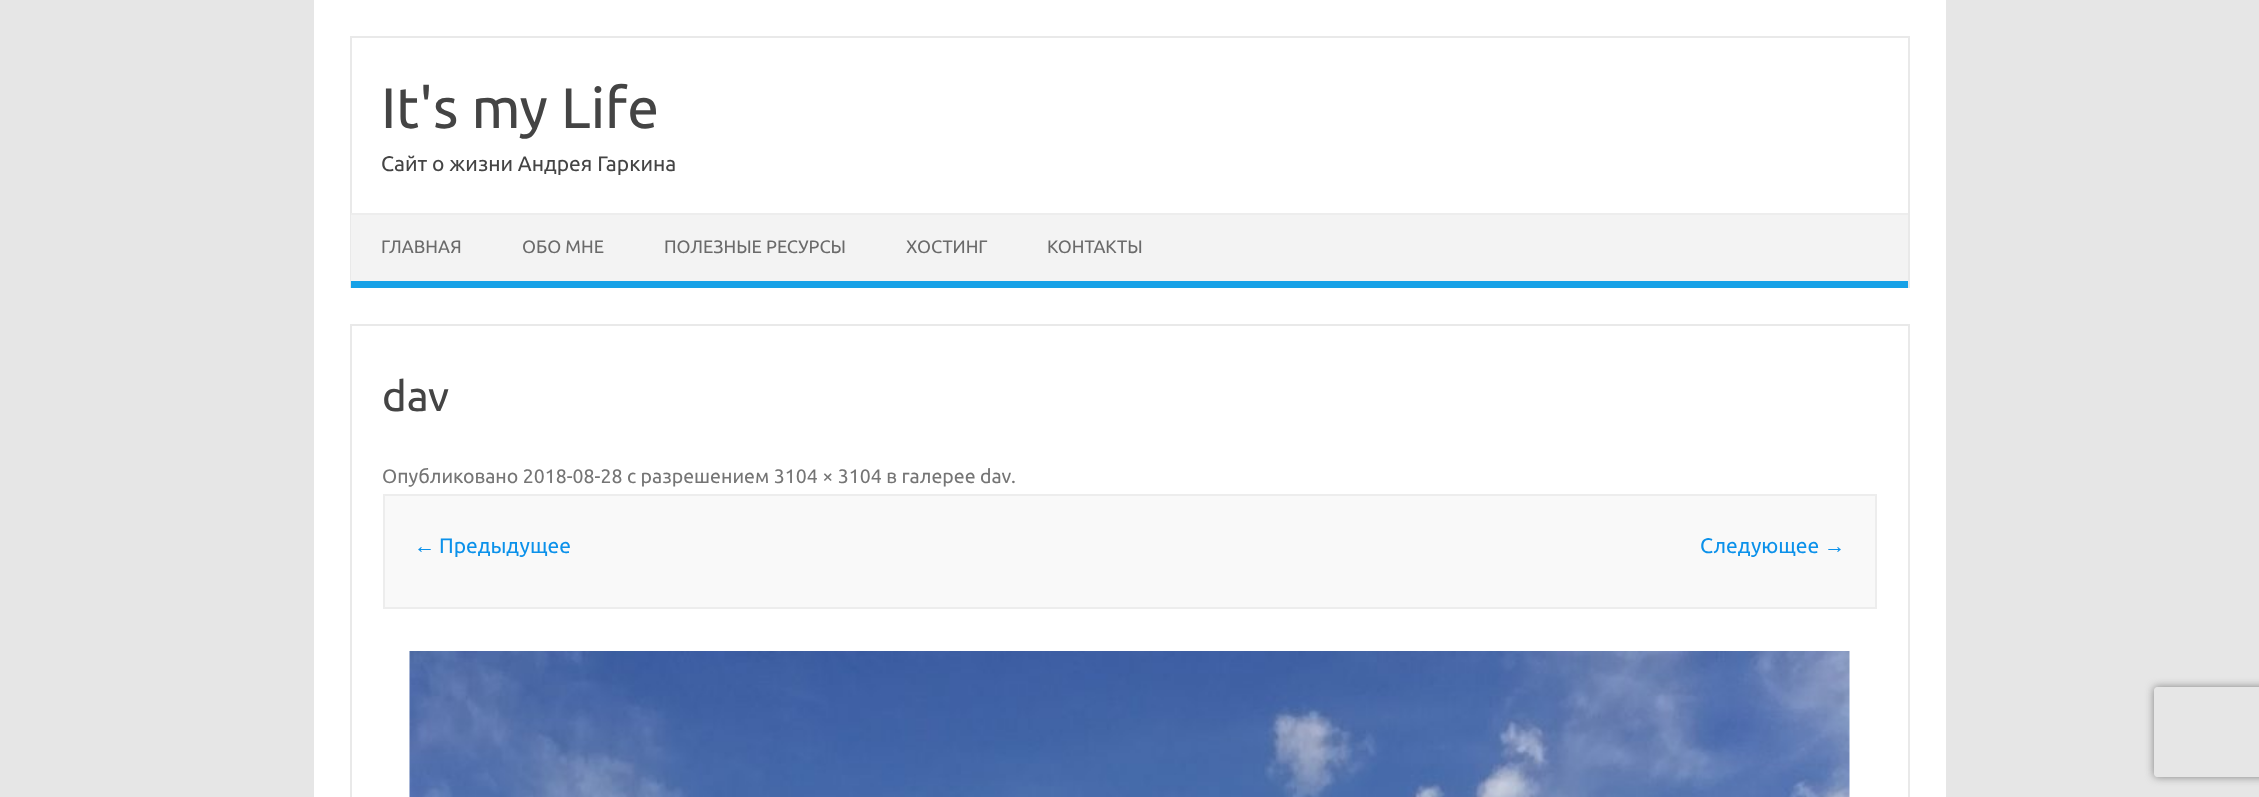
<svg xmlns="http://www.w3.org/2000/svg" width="2259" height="797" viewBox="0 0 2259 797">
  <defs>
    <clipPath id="clip1"><path d="M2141 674H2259V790H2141ZM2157 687H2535C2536.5 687 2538 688.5 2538 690V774C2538 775.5 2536.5 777 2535 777H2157C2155.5 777 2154 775.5 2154 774V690C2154 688.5 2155.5 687 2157 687Z" clip-rule="evenodd"/></clipPath>
  </defs>
  <rect width="100%" height="100%" fill="rgb(230,230,230)"/>
  <rect x="314" y="0" width="1632" height="797" fill="rgb(255,255,255)"/>
  <rect x="350" y="36" width="1560" height="2" fill="rgb(233,233,233)"/>
  <rect x="1908" y="36" width="2" height="252" fill="rgb(233,233,233)"/>
  <rect x="350" y="36" width="2" height="252" fill="rgb(233,233,233)"/>
  <text x="381" y="128" font-family="Ubuntu" font-size="57" fill="rgb(68,68,68)">It's my Life</text>
  <text x="381" y="171" font-family="Ubuntu" font-size="21" fill="rgb(68,68,68)">Сайт о жизни Андрея Гаркина</text>
  <rect x="351" y="215" width="1557" height="66" fill="rgb(243,243,243)"/>
  <rect x="351" y="213" width="1557" height="2" fill="rgb(237,237,237)"/>
  <rect x="351" y="281" width="1557" height="7" fill="rgb(22,161,231)"/>
  <g font-family="Ubuntu" font-size="18" fill="rgb(106,106,106)">
    <text x="381" y="253">ГЛАВНАЯ</text>
    <text x="522" y="253">ОБО МНЕ</text>
    <text x="664" y="253">ПОЛЕЗНЫЕ РЕСУРСЫ</text>
    <text x="906" y="253">ХОСТИНГ</text>
    <text x="1047" y="253">КОНТАКТЫ</text>
  </g>
  <rect x="351" y="325" width="1558" height="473" fill="none" stroke="rgb(233,233,233)" stroke-width="2"/>
  <text x="382" y="411" font-family="Ubuntu" font-size="42" fill="rgb(68,68,68)">dav</text>
  <g font-family="Ubuntu" font-size="19.5" fill="rgb(117,117,117)">
    <text x="382" y="483">Опубликовано 2018-08-28 с разрешением 3104 × 3104 в галерее dav</text>
    <text x="1011" y="483">.</text>
  </g>
  <rect x="384" y="495" width="1492" height="113" fill="rgb(249,249,249)" stroke="rgb(237,237,237)" stroke-width="2"/>
  <text x="414" y="553" font-family="Liberation Sans" font-size="21" fill="rgb(11,145,234)">←</text>
  <g font-family="Ubuntu" font-size="21" fill="rgb(11,145,234)">
    <text x="439" y="553">Предыдущее</text>
    <text x="1700" y="553">Следующее</text>
  </g>
  <text x="1824" y="553" font-family="Liberation Sans" font-size="21" fill="rgb(11,145,234)">→</text>
  <image x="409" y="651" width="1441" height="146" href="pic1.png"/>
  <g clip-path="url(#clip1)">
    <rect x="2154" y="687" width="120" height="90" rx="3" fill="rgb(128,128,128)" filter="blur(4px)"/>
  </g>
</svg>
